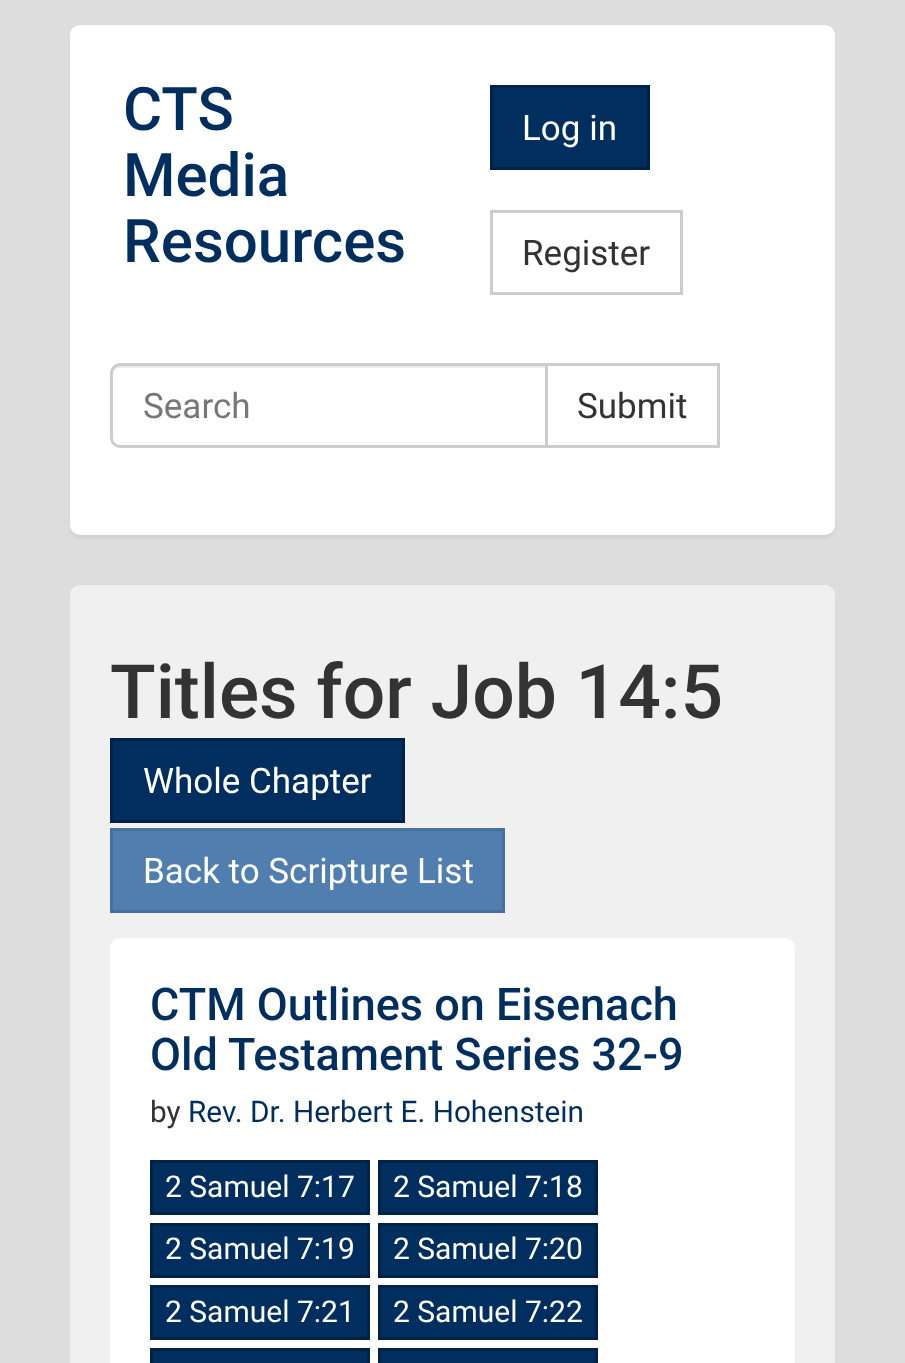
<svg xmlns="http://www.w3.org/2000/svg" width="905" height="1363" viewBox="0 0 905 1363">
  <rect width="100%" height="100%" fill="rgb(221,221,221)"/>
  <rect x="70" y="28" width="765" height="510" rx="10" fill="rgba(0,0,0,0.05)" filter="blur(1px)"/>
  <rect x="70" y="25" width="765" height="510" rx="10" fill="rgb(255,255,255)"/>
  <g font-family="Roboto" font-size="60" font-weight="500" fill="rgb(0,46,95)">
    <text>
      <tspan x="123" y="130">CTS</tspan>
      <tspan x="123" y="196">Media</tspan>
      <tspan x="123" y="262">Resources</tspan>
    </text>
  </g>
  <rect x="491.5" y="86.5" width="157" height="82" fill="rgb(0,46,95)" stroke="rgb(0,34,70)" stroke-width="3"/>
  <text x="522" y="140" font-family="Roboto" font-size="35" fill="rgb(255,255,255)">Log in</text>
  <rect x="491.5" y="211.5" width="190" height="82" fill="none" stroke="rgb(204,204,204)" stroke-width="3"/>
  <text x="522" y="265" font-family="Roboto" font-size="35" fill="rgb(51,51,51)">Register</text>
  <rect x="546.5" y="364.5" width="172" height="82" fill="none" stroke="rgb(204,204,204)" stroke-width="3"/>
  <path d="M120 363H548V448H120C114.5 448 110 443.5 110 438V373C110 367.5 114.5 363 120 363Z" fill="rgb(255,255,255)"/>
  <path d="M120 368H545V365H121C117 365 114 368 113 371C115 369 117 368 120 368Z" fill="rgb(236,236,236)"/>
  <path d="M120 364.5H546.5V446.5H120C115.5 446.5 111.5 442.5 111.5 438V373C111.5 368.5 115.5 364.5 120 364.5Z" fill="none" stroke="rgb(204,204,204)" stroke-width="3"/>
  <text x="143" y="418" font-family="Roboto" font-size="35" fill="rgb(119,119,119)">Search</text>
  <text x="577" y="418" font-family="Roboto" font-size="35" fill="rgb(51,51,51)">Submit</text>
  <rect x="70" y="585" width="765" height="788" rx="10" fill="rgb(240,240,240)"/>
  <text x="110" y="718" font-family="Roboto" font-size="75" font-weight="500" fill="rgb(51,51,51)">Titles for Job 14:5</text>
  <rect x="111.5" y="739.5" width="292" height="82" fill="rgb(0,46,95)" stroke="rgb(0,34,70)" stroke-width="3"/>
  <text x="143" y="793" font-family="Roboto" font-size="35" fill="rgb(255,255,255)">Whole Chapter</text>
  <rect x="111.5" y="829.5" width="392" height="82" fill="rgb(79,126,175)" stroke="rgb(71,113,157)" stroke-width="3"/>
  <text x="143" y="883" font-family="Roboto" font-size="35" fill="rgb(255,255,255)">Back to Scripture List</text>
  <rect x="110" y="938" width="685" height="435" rx="10" fill="rgb(255,255,255)"/>
  <g font-family="Roboto" font-size="45" font-weight="500" fill="rgb(0,46,95)">
    <text>
      <tspan x="150" y="1020">CTM Outlines on Eisenach</tspan>
      <tspan x="150" y="1070">Old Testament Series 32-9</tspan>
    </text>
  </g>
  <text x="150" y="1122" font-family="Roboto" font-size="29.75" fill="rgb(51,51,51)">by</text>
  <text x="188" y="1122" font-family="Roboto" font-size="29.75" fill="rgb(0,46,95)">Rev. Dr. Herbert E. Hohenstein</text>
  <rect x="151.5" y="1161.5" width="217" height="52" fill="rgb(0,46,95)" stroke="rgb(0,34,70)" stroke-width="3"/>
  <text x="165" y="1197" font-family="Roboto" font-size="30" fill="rgb(255,255,255)">2 Samuel 7:17</text>
  <rect x="379.5" y="1161.5" width="217" height="52" fill="rgb(0,46,95)" stroke="rgb(0,34,70)" stroke-width="3"/>
  <text x="393" y="1197" font-family="Roboto" font-size="30" fill="rgb(255,255,255)">2 Samuel 7:18</text>
  <rect x="151.5" y="1224.5" width="217" height="52" fill="rgb(0,46,95)" stroke="rgb(0,34,70)" stroke-width="3"/>
  <text x="165" y="1259" font-family="Roboto" font-size="30" fill="rgb(255,255,255)">2 Samuel 7:19</text>
  <rect x="379.5" y="1224.5" width="217" height="52" fill="rgb(0,46,95)" stroke="rgb(0,34,70)" stroke-width="3"/>
  <text x="393" y="1259" font-family="Roboto" font-size="30" fill="rgb(255,255,255)">2 Samuel 7:20</text>
  <rect x="151.5" y="1286.5" width="217" height="52" fill="rgb(0,46,95)" stroke="rgb(0,34,70)" stroke-width="3"/>
  <text x="165" y="1322" font-family="Roboto" font-size="30" fill="rgb(255,255,255)">2 Samuel 7:21</text>
  <rect x="379.5" y="1286.5" width="217" height="52" fill="rgb(0,46,95)" stroke="rgb(0,34,70)" stroke-width="3"/>
  <text x="393" y="1322" font-family="Roboto" font-size="30" fill="rgb(255,255,255)">2 Samuel 7:22</text>
  <rect x="151.5" y="1349.5" width="217" height="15" fill="rgb(0,46,95)" stroke="rgb(0,34,70)" stroke-width="3"/>
  <rect x="379.5" y="1349.5" width="217" height="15" fill="rgb(0,46,95)" stroke="rgb(0,34,70)" stroke-width="3"/>
</svg>
